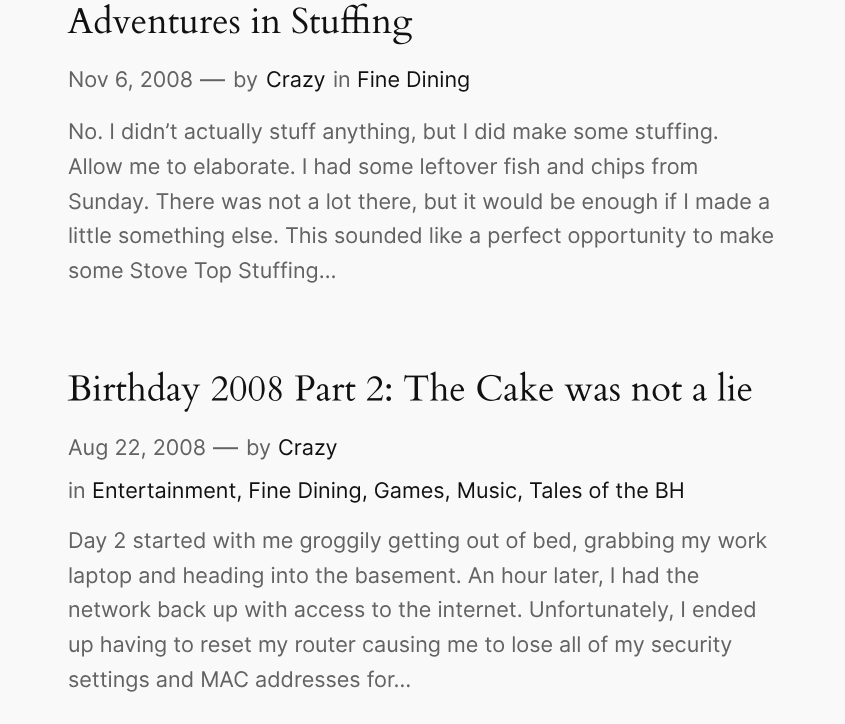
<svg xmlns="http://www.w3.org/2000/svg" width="845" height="724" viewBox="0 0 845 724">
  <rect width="100%" height="100%" fill="rgb(249,249,249)"/>
  <image x="67" y="3" width="346" height="42" href="pic1.png"/>
  <text x="68" y="87" font-family="Inter" font-size="21.6" fill="rgb(99,99,99)">Nov 6, 2008</text>
  <text x="200" y="88" font-family="Inter" font-size="25" fill="rgb(99,99,99)">—</text>
  <text x="233" y="87" font-family="Inter" font-size="21.6" fill="rgb(99,99,99)">by</text>
  <text x="266" y="87" font-family="Inter" font-size="21.6" fill="rgb(17,17,17)">Crazy</text>
  <text x="333" y="87" font-family="Inter" font-size="21.6" fill="rgb(99,99,99)">in</text>
  <text x="357" y="87" font-family="Inter" font-size="21.6" fill="rgb(17,17,17)">Fine Dining</text>
  <g font-family="Inter" font-size="21.6" fill="rgb(99,99,99)">
    <text>
      <tspan x="68" y="139">No. I didn’t actually stuff anything, but I did make some stuffing.</tspan>
      <tspan x="68" y="174">Allow me to elaborate. I had some leftover fish and chips from</tspan>
      <tspan x="68" y="209">Sunday. There was not a lot there, but it would be enough if I made a</tspan>
      <tspan x="68" y="243">little something else. This sounded like a perfect opportunity to make</tspan>
      <tspan x="68" y="278">some Stove Top Stuffing…</tspan>
    </text>
  </g>
  <image x="67" y="371" width="685" height="41" href="pic2.png"/>
  <text x="68" y="455" font-family="Inter" font-size="21.6" fill="rgb(99,99,99)">Aug 22, 2008</text>
  <text x="213" y="456" font-family="Inter" font-size="25" fill="rgb(99,99,99)">—</text>
  <text x="246" y="455" font-family="Inter" font-size="21.6" fill="rgb(99,99,99)">by</text>
  <text x="278" y="455" font-family="Inter" font-size="21.6" fill="rgb(17,17,17)">Crazy</text>
  <text x="68" y="498" font-family="Inter" font-size="21.6" fill="rgb(99,99,99)">in</text>
  <text x="92" y="498" font-family="Inter" font-size="21.6" fill="rgb(17,17,17)">Entertainment, Fine Dining, Games, Music, Tales of the BH</text>
  <g font-family="Inter" font-size="21.6" fill="rgb(99,99,99)">
    <text>
      <tspan x="68" y="548">Day 2 started with me groggily getting out of bed, grabbing my work</tspan>
      <tspan x="68" y="583">laptop and heading into the basement. An hour later, I had the</tspan>
      <tspan x="68" y="617">network back up with access to the internet. Unfortunately, I ended</tspan>
      <tspan x="68" y="652">up having to reset my router causing me to lose all of my security</tspan>
      <tspan x="68" y="687">settings and MAC addresses for…</tspan>
    </text>
  </g>
</svg>
